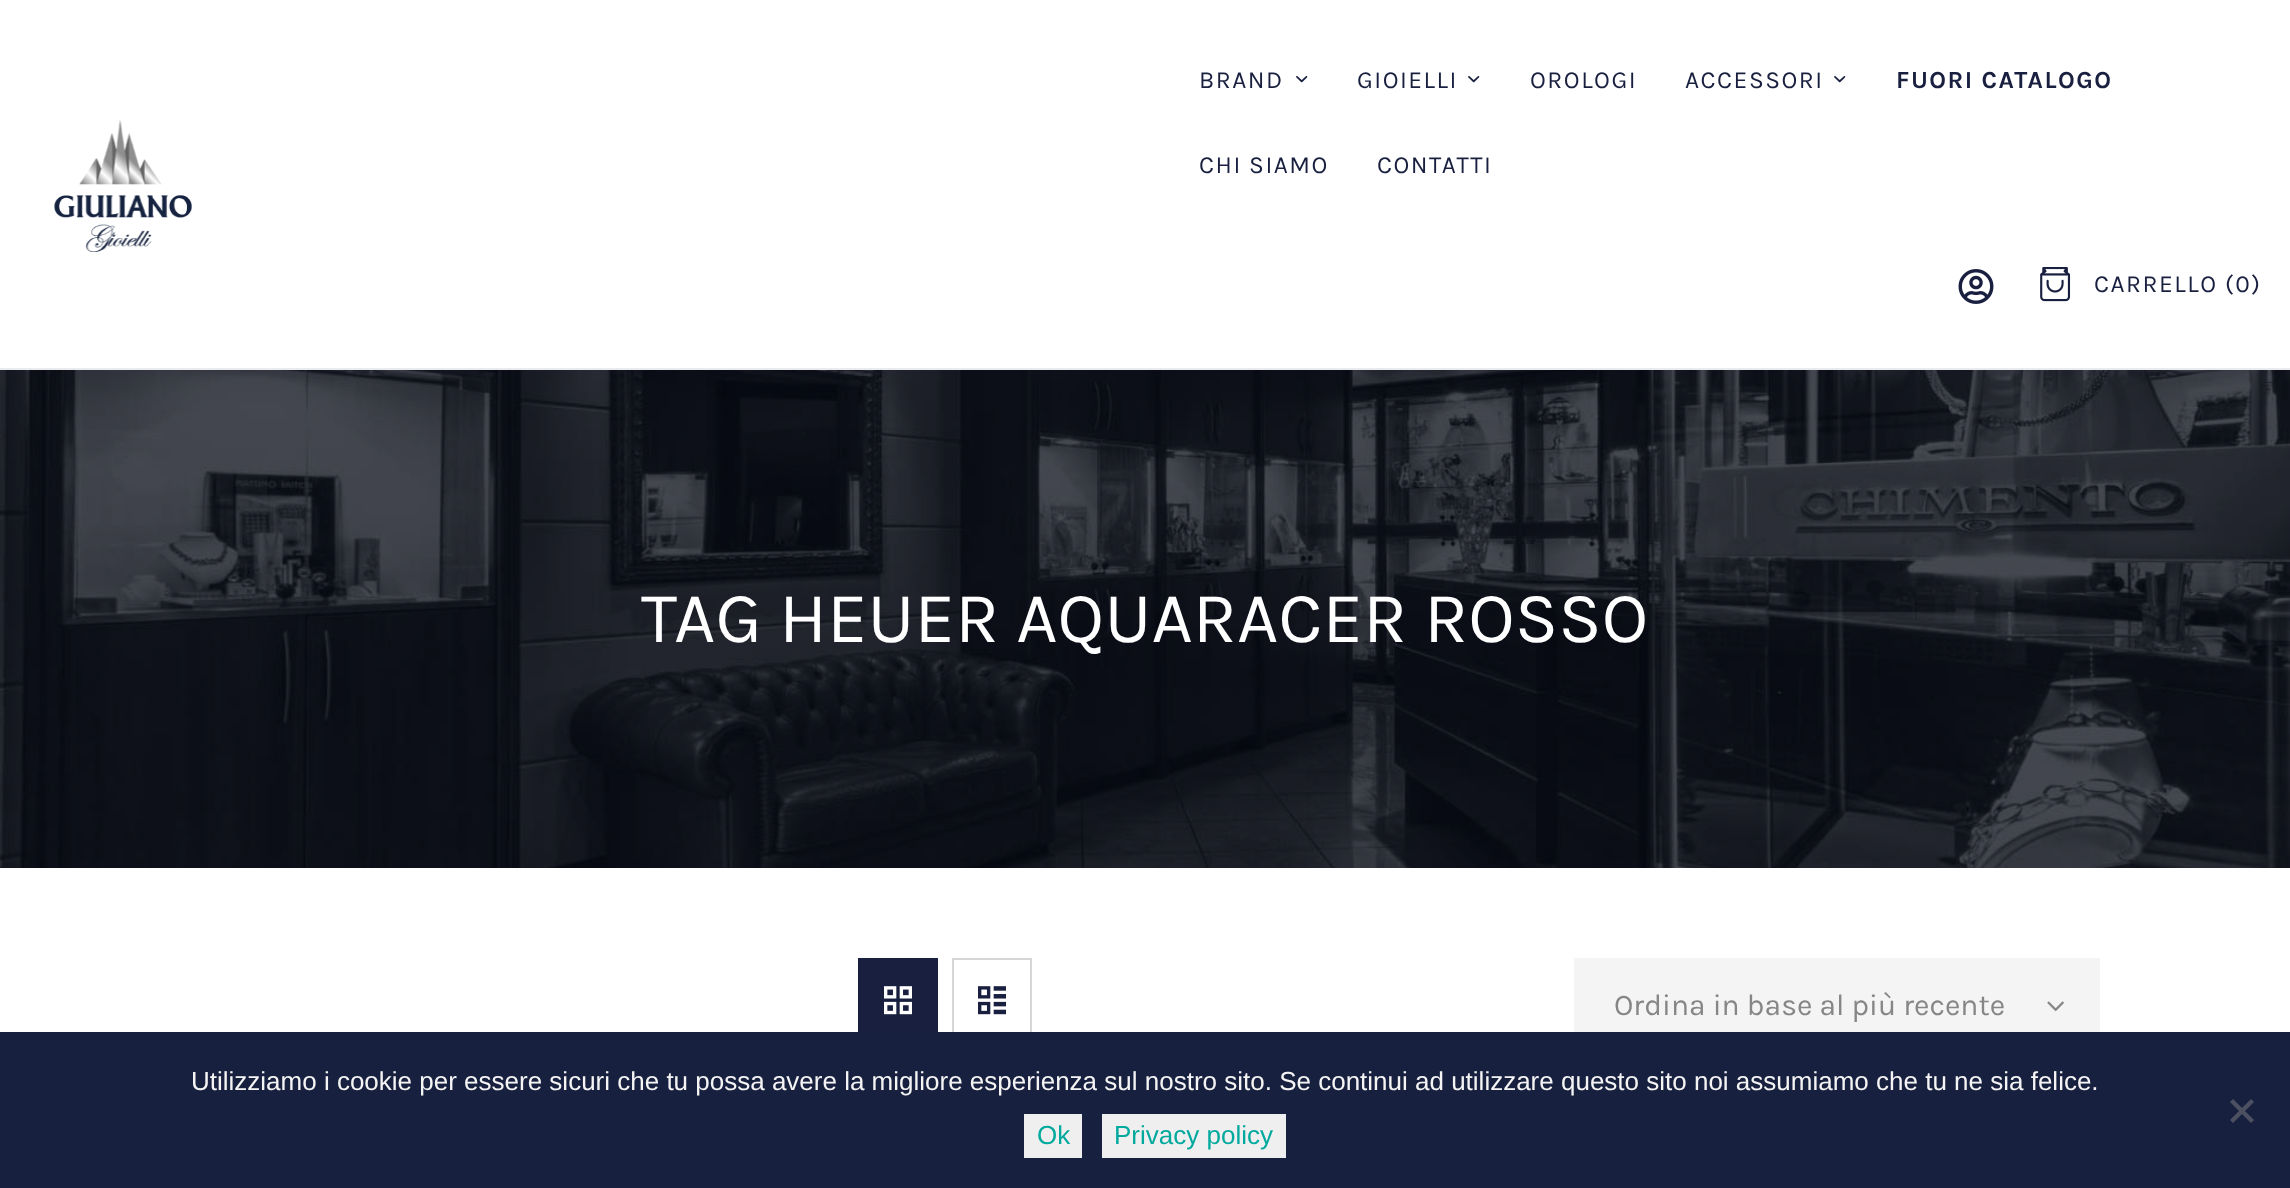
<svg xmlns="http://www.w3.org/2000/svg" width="2290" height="1188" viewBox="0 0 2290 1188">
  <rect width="100%" height="100%" fill="rgb(255,255,255)"/>
  <rect x="0" y="368" width="2290" height="2" fill="rgb(234,235,238)"/>
  <image x="54" y="120" width="138" height="132" href="pic1.png"/>
  <text x="1199" y="88" font-family="Karla" font-size="24.5" letter-spacing="1.5" fill="rgb(25,31,63)">BRAND</text>
  <image x="1296" y="76" width="12" height="7" href="pic2.png"/>
  <text x="1357" y="88" font-family="Karla" font-size="24.5" letter-spacing="1.5" fill="rgb(25,31,63)">GIOIELLI</text>
  <image x="1468" y="76" width="12" height="7" href="pic2.png"/>
  <g font-family="Karla" font-size="24.5" letter-spacing="1.5" fill="rgb(25,31,63)">
    <text x="1530" y="88">OROLOGI</text>
    <text x="1685" y="88">ACCESSORI</text>
  </g>
  <image x="1834" y="76" width="12" height="7" href="pic2.png"/>
  <text x="1896" y="88" font-family="Karla" font-size="24.5" font-weight="bold" letter-spacing="1.5" fill="rgb(25,31,63)">FUORI CATALOGO</text>
  <g font-family="Karla" font-size="24.5" letter-spacing="1.5" fill="rgb(25,31,63)">
    <text x="1199" y="173">CHI SIAMO</text>
    <text x="1377" y="173">CONTATTI</text>
  </g>
  <image x="1958" y="269" width="36" height="35" href="pic3.png"/>
  <image x="2040" y="267" width="31" height="35" href="pic4.png"/>
  <text x="2094" y="292" font-family="Karla" font-size="24.5" letter-spacing="1.5" fill="rgb(25,31,63)">CARRELLO (0)</text>
  <image x="0" y="370" width="2290" height="498" href="pic5.png"/>
  <text x="641" y="642" font-family="Karla" font-size="72" fill="rgb(255,255,255)">TAG HEUER AQUARACER ROSSO</text>
  <rect x="858" y="958" width="80" height="74" fill="rgb(25,31,63)"/>
  <image x="884" y="986" width="28" height="29" href="pic6.png"/>
  <rect x="953" y="959" width="78" height="84" fill="none" stroke="rgb(215,214,213)" stroke-width="2"/>
  <image x="978" y="986" width="28" height="29" href="pic7.png"/>
  <rect x="1574" y="958" width="526" height="74" fill="rgb(244,244,244)"/>
  <text x="1614" y="1015" font-family="Karla" font-size="30" fill="rgb(134,134,134)">Ordina in base al più recente</text>
  <image x="2047" y="1001" width="17" height="11" href="pic8.png"/>
  <rect x="0" y="1032" width="2290" height="156" fill="rgb(24,32,63)"/>
  <text x="191" y="1090" font-family="Liberation Sans" font-size="26" fill="rgb(244,244,244)">Utilizziamo i cookie per essere sicuri che tu possa avere la migliore esperienza sul nostro sito. Se continui ad utilizzare questo sito noi assumiamo che tu ne sia felice.</text>
  <path d="M2251 1099L2254 1102L2233 1123L2230 1120Z" fill="rgb(76,80,96)"/>
  <path d="M2230 1102L2233 1099L2254 1120L2251 1123Z" fill="rgb(76,80,96)"/>
  <rect x="1024" y="1114" width="58" height="44" fill="rgb(239,239,239)"/>
  <text x="1037" y="1144" font-family="Liberation Sans" font-size="26" fill="rgb(0,169,157)">Ok</text>
  <rect x="1102" y="1114" width="184" height="44" fill="rgb(239,239,239)"/>
  <text x="1114" y="1144" font-family="Liberation Sans" font-size="26" fill="rgb(0,169,157)">Privacy policy</text>
</svg>
